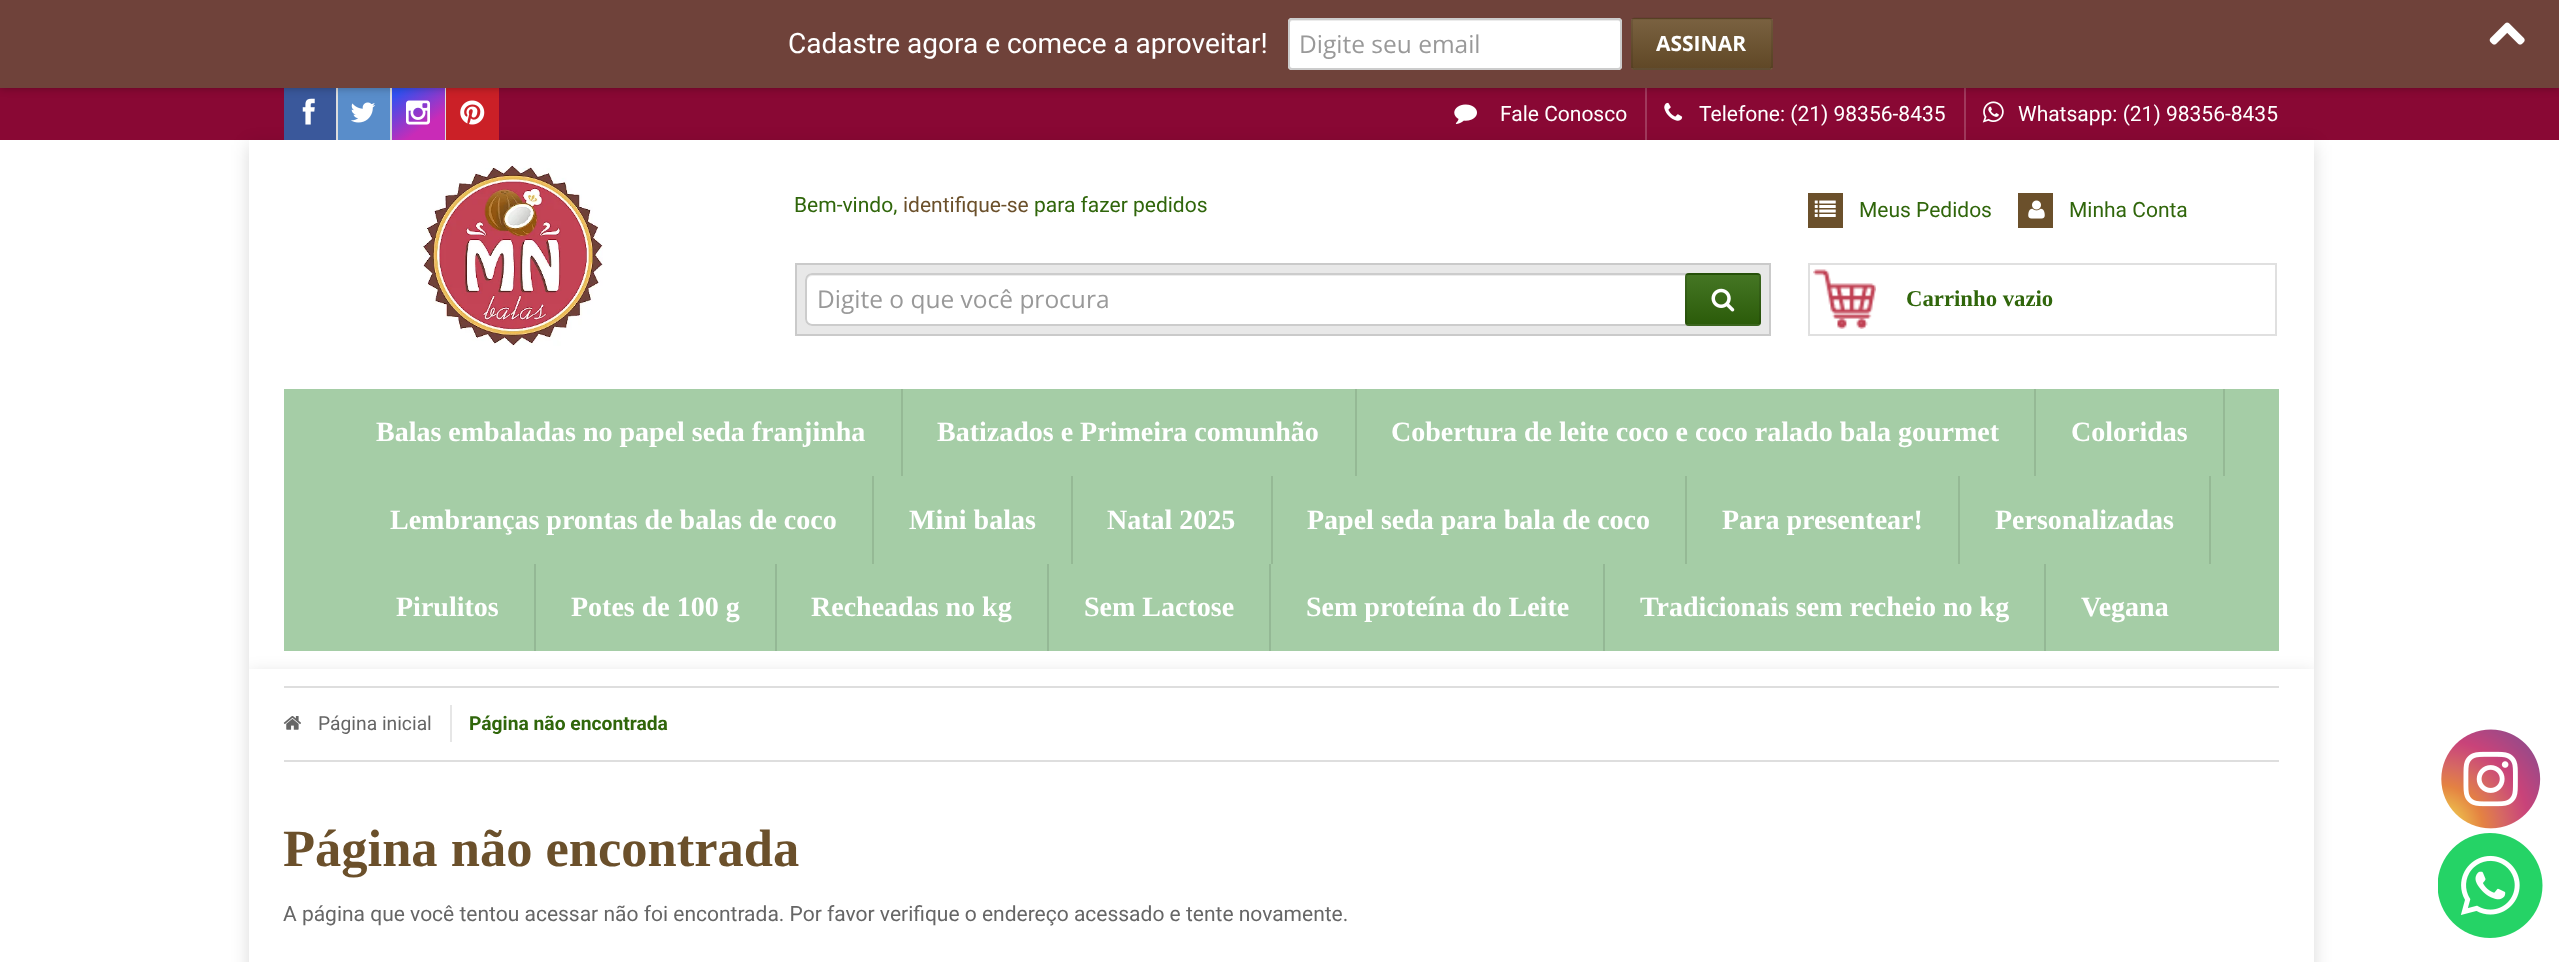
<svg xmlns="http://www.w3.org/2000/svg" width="2559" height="962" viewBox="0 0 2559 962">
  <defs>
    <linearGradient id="g1" gradientUnits="userSpaceOnUse" x1="397" y1="84" x2="439" y2="144"><stop offset="0.1" stop-color="rgb(48,81,241)"/><stop offset="0.7" stop-color="rgb(201,43,183)"/></linearGradient>
    <clipPath id="clip1"><rect x="1631" y="18" width="142" height="52" rx="4"/></clipPath>
    <linearGradient id="g2" gradientUnits="userSpaceOnUse" x1="1702" y1="-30" x2="1702" y2="19"><stop offset="0" stop-color="rgb(255,255,255)" stop-opacity="0.1"/><stop offset="1" stop-color="rgb(0,0,0)" stop-opacity="0.1"/></linearGradient>
    <linearGradient id="g3" gradientUnits="userSpaceOnUse" x1="1702" y1="19" x2="1702" y2="68"><stop offset="0" stop-color="rgb(255,255,255)" stop-opacity="0.1"/><stop offset="1" stop-color="rgb(0,0,0)" stop-opacity="0.1"/></linearGradient>
    <linearGradient id="g4" gradientUnits="userSpaceOnUse" x1="1702" y1="68" x2="1702" y2="117"><stop offset="0" stop-color="rgb(255,255,255)" stop-opacity="0.1"/><stop offset="1" stop-color="rgb(0,0,0)" stop-opacity="0.1"/></linearGradient>
    <clipPath id="clip2"><rect x="1685" y="273" width="76" height="53" rx="4"/></clipPath>
    <linearGradient id="g5" gradientUnits="userSpaceOnUse" x1="1723" y1="226" x2="1723" y2="275"><stop offset="0" stop-color="rgb(255,255,255)" stop-opacity="0.1"/><stop offset="1" stop-color="rgb(0,0,0)" stop-opacity="0.1"/></linearGradient>
    <linearGradient id="g6" gradientUnits="userSpaceOnUse" x1="1723" y1="275" x2="1723" y2="324"><stop offset="0" stop-color="rgb(255,255,255)" stop-opacity="0.1"/><stop offset="1" stop-color="rgb(0,0,0)" stop-opacity="0.1"/></linearGradient>
    <linearGradient id="g7" gradientUnits="userSpaceOnUse" x1="1723" y1="324" x2="1723" y2="373"><stop offset="0" stop-color="rgb(255,255,255)" stop-opacity="0.1"/><stop offset="1" stop-color="rgb(0,0,0)" stop-opacity="0.1"/></linearGradient>
  </defs>
  <rect width="100%" height="100%" fill="rgb(255,255,255)"/>
  <rect x="0" y="88" width="2559" height="52" fill="rgb(137,8,52)"/>
  <rect x="249" y="145" width="2065" height="529" fill="rgba(0,0,0,0.15)" filter="blur(9px)"/>
  <rect x="284" y="88" width="52" height="52" fill="rgb(58,88,155)"/>
  <image x="302" y="98" width="13" height="27" href="pic2.png"/>
  <rect x="336" y="88" width="2" height="52" fill="rgb(221,221,221)"/>
  <rect x="338" y="88" width="52" height="52" fill="rgb(89,141,202)"/>
  <image x="351" y="102" width="25" height="21" href="pic3.png"/>
  <rect x="390" y="88" width="2" height="52" fill="rgb(221,221,221)"/>
  <rect x="392" y="88" width="53" height="52" fill="url(#g1)"/>
  <image x="406" y="100" width="24" height="25" href="pic4.png"/>
  <rect x="445" y="88" width="1" height="52" fill="rgb(221,221,221)"/>
  <rect x="446" y="88" width="53" height="52" fill="rgb(203,32,39)"/>
  <image x="460" y="100" width="25" height="25" href="pic5.png"/>
  <rect x="1645" y="88" width="2" height="52" fill="rgba(255,255,255,0.2)"/>
  <image x="1664" y="102" width="19" height="19" href="pic7.png"/>
  <rect x="1964" y="88" width="2" height="52" fill="rgba(255,255,255,0.2)"/>
  <image x="1982" y="101" width="22" height="22" href="pic8.png"/>
  <rect x="0" y="0" width="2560" height="88" fill="rgba(0,0,0,0.3)" filter="blur(4.5px)"/>
  <rect x="0" y="0" width="2559" height="88" fill="rgb(111,66,58)"/>
  <text x="788" y="53" font-family="Roboto" font-size="28" fill="rgb(255,255,255)">Cadastre agora e comece a aproveitar!</text>
  <rect x="1288" y="18" width="334" height="52" rx="4" fill="rgb(255,255,255)"/>
  <path d="M1292 21H1619C1620 21 1620 22 1620 23V68C1621 67 1621 67 1621 66V21C1621 20 1620 19 1619 19H1292C1291 19 1290 20 1290 21V23C1290 22 1291 21 1292 21Z" fill="rgb(236,236,236)"/>
  <rect x="1289" y="19" width="332" height="50" rx="3" fill="none" stroke="rgb(204,204,204)" stroke-width="2"/>
  <text x="1299" y="53" font-family="Open Sans" font-size="24.5" fill="rgb(153,153,153)">Digite seu email</text>
  <rect x="1631" y="18" width="142" height="52" rx="4" fill="rgb(107,80,43)"/>
  <g clip-path="url(#clip1)">
    <rect x="1631" y="18" width="142" height="1" fill="url(#g2)"/>
  </g>
  <rect x="1631" y="19" width="142" height="49" fill="url(#g3)"/>
  <g clip-path="url(#clip1)">
    <rect x="1631" y="68" width="142" height="2" fill="url(#g4)"/>
  </g>
  <path d="M1771 68.5L1769.5 69H1657H1634.5L1632.5 68.5" fill="none" stroke="rgba(0,0,0,0.2)" stroke-width="1.8"/>
  <path d="M1632.5 68.5L1632 66.5V21L1632.5 19L1634.5 18.5H1769L1771 19L1772 21V66.5L1771 68.5" fill="none" stroke="rgba(0,0,0,0.1)" stroke-width="1.8"/>
  <text x="1656" y="51" font-family="Open Sans" font-size="21" font-weight="bold" fill="rgb(255,255,255)">ASSINAR</text>
  <image x="2489" y="22" width="36" height="23" href="pic1.png"/>
  <image x="1454" y="104" width="23" height="20" href="pic6.png"/>
  <g font-family="Roboto" font-size="21" fill="rgb(255,255,255)">
    <text x="1500" y="121">Fale Conosco</text>
    <text x="1699" y="121">Telefone: (21) 98356-8435</text>
    <text x="2018" y="121">Whatsapp: (21) 98356-8435</text>
  </g>
  <rect x="249" y="140" width="2065" height="529" fill="rgb(255,255,255)"/>
  <image x="420" y="165" width="183" height="181" href="pic9.png"/>
  <text x="794" y="212" font-family="Roboto" font-size="21" fill="rgb(48,102,11)">Bem-vindo,</text>
  <text x="903" y="212" font-family="Roboto" font-size="21" fill="rgb(107,80,43)">identifique-se</text>
  <text x="1034" y="212" font-family="Roboto" font-size="21" fill="rgb(48,102,11)">para fazer pedidos</text>
  <rect x="1808" y="193" width="35" height="35" fill="rgb(107,80,43)"/>
  <image x="1814" y="200" width="22" height="17" href="pic10.png"/>
  <text x="1859" y="217" font-family="Roboto" font-size="21" fill="rgb(48,102,11)">Meus Pedidos</text>
  <rect x="2018" y="193" width="35" height="35" fill="rgb(107,80,43)"/>
  <image x="2028" y="200" width="17" height="19" href="pic11.png"/>
  <text x="2069" y="217" font-family="Roboto" font-size="21" fill="rgb(48,102,11)">Minha Conta</text>
  <rect x="796" y="264" width="974" height="71" fill="rgb(232,232,232)" stroke="rgb(202,202,202)" stroke-width="2"/>
  <rect x="805" y="273" width="922" height="53" rx="7" fill="rgb(255,255,255)"/>
  <path d="M812 276H1720C1723 276 1726 279 1726 282V280C1726 277 1724 275 1721 275H812C809 275 807 277 807 280V282C807 279 809 276 812 276Z" fill="rgb(236,236,236)"/>
  <rect x="806" y="274" width="920" height="51" rx="6" fill="none" stroke="rgb(204,204,204)" stroke-width="2"/>
  <text x="817" y="308" font-family="Open Sans" font-size="24.5" fill="rgb(153,153,153)">Digite o que você procura</text>
  <rect x="1685" y="273" width="76" height="53" rx="4" fill="rgb(48,102,11)"/>
  <g clip-path="url(#clip2)">
    <rect x="1685" y="273" width="76" height="2" fill="url(#g5)"/>
  </g>
  <rect x="1685" y="275" width="76" height="49" fill="url(#g6)"/>
  <g clip-path="url(#clip2)">
    <rect x="1685" y="324" width="76" height="2" fill="url(#g7)"/>
  </g>
  <rect x="1686" y="274" width="74" height="51" rx="3" fill="none" stroke="rgba(0,0,0,0.13)" stroke-width="2"/>
  <image x="1711" y="288" width="24" height="24" href="pic12.png"/>
  <rect x="1809" y="264" width="467" height="71" fill="none" stroke="rgb(224,224,224)" stroke-width="2"/>
  <image x="1813" y="269" width="63" height="60" href="pic13.png"/>
  <text x="1906" y="306" font-family="Liberation Serif" font-size="22.75" font-weight="bold" fill="rgb(48,102,11)">Carrinho vazio</text>
  <rect x="284" y="389" width="1995" height="262" fill="rgb(165,205,166)"/>
  <rect x="901" y="389" width="2" height="87" fill="rgb(149,185,149)"/>
  <text x="376" y="441" font-family="Liberation Serif" font-size="28" font-weight="bold" fill="rgb(255,255,255)">Balas embaladas no papel seda franjinha</text>
  <rect x="1355" y="389" width="2" height="87" fill="rgb(149,185,149)"/>
  <text x="937" y="441" font-family="Liberation Serif" font-size="28" font-weight="bold" fill="rgb(255,255,255)">Batizados e Primeira comunhão</text>
  <rect x="2034" y="389" width="2" height="87" fill="rgb(149,185,149)"/>
  <text x="1391" y="441" font-family="Liberation Serif" font-size="28" font-weight="bold" fill="rgb(255,255,255)">Cobertura de leite coco e coco ralado bala gourmet</text>
  <rect x="2223" y="389" width="2" height="87" fill="rgb(149,185,149)"/>
  <text x="2071" y="441" font-family="Liberation Serif" font-size="28" font-weight="bold" fill="rgb(255,255,255)">Coloridas</text>
  <rect x="872" y="476" width="2" height="88" fill="rgb(149,185,149)"/>
  <text x="390" y="529" font-family="Liberation Serif" font-size="28" font-weight="bold" fill="rgb(255,255,255)">Lembranças prontas de balas de coco</text>
  <rect x="1071" y="476" width="2" height="88" fill="rgb(149,185,149)"/>
  <text x="909" y="529" font-family="Liberation Serif" font-size="28" font-weight="bold" fill="rgb(255,255,255)">Mini balas</text>
  <rect x="1271" y="476" width="2" height="88" fill="rgb(149,185,149)"/>
  <text x="1107" y="529" font-family="Liberation Serif" font-size="28" font-weight="bold" fill="rgb(255,255,255)">Natal 2025</text>
  <rect x="1685" y="476" width="2" height="88" fill="rgb(149,185,149)"/>
  <text x="1307" y="529" font-family="Liberation Serif" font-size="28" font-weight="bold" fill="rgb(255,255,255)">Papel seda para bala de coco</text>
  <rect x="1958" y="476" width="2" height="88" fill="rgb(149,185,149)"/>
  <text x="1722" y="529" font-family="Liberation Serif" font-size="28" font-weight="bold" fill="rgb(255,255,255)">Para presentear!</text>
  <rect x="2209" y="476" width="2" height="88" fill="rgb(149,185,149)"/>
  <text x="1995" y="529" font-family="Liberation Serif" font-size="28" font-weight="bold" fill="rgb(255,255,255)">Personalizadas</text>
  <rect x="249" y="674" width="2065" height="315" fill="rgba(0,0,0,0.15)" filter="blur(9px)"/>
  <rect x="534" y="564" width="2" height="87" fill="rgb(148,184,149)"/>
  <text x="396" y="616" font-family="Liberation Serif" font-size="28" font-weight="bold" fill="rgb(255,255,255)">Pirulitos</text>
  <rect x="775" y="564" width="2" height="87" fill="rgb(148,184,149)"/>
  <text x="571" y="616" font-family="Liberation Serif" font-size="28" font-weight="bold" fill="rgb(255,255,255)">Potes de 100 g</text>
  <rect x="1047" y="564" width="2" height="87" fill="rgb(148,184,149)"/>
  <text x="811" y="616" font-family="Liberation Serif" font-size="28" font-weight="bold" fill="rgb(255,255,255)">Recheadas no kg</text>
  <rect x="1269" y="564" width="2" height="87" fill="rgb(148,184,149)"/>
  <text x="1084" y="616" font-family="Liberation Serif" font-size="28" font-weight="bold" fill="rgb(255,255,255)">Sem Lactose</text>
  <rect x="1603" y="564" width="2" height="87" fill="rgb(148,184,149)"/>
  <text x="1306" y="616" font-family="Liberation Serif" font-size="28" font-weight="bold" fill="rgb(255,255,255)">Sem proteína do Leite</text>
  <rect x="2044" y="564" width="2" height="87" fill="rgb(148,184,149)"/>
  <g font-family="Liberation Serif" font-size="28" font-weight="bold" fill="rgb(255,255,255)">
    <text x="1640" y="616">Tradicionais sem recheio no kg</text>
    <text x="2081" y="616">Vegana</text>
  </g>
  <rect x="249" y="669" width="2065" height="293" fill="rgb(255,255,255)"/>
  <rect x="284" y="686" width="1995" height="2" fill="rgb(222,222,222)"/>
  <rect x="284" y="760" width="1995" height="2" fill="rgb(222,222,222)"/>
  <image x="283" y="716" width="18" height="14" href="pic14.png"/>
  <text x="318" y="730" font-family="Roboto" font-size="19.25" fill="rgb(102,102,102)">Página inicial</text>
  <rect x="450" y="705" width="2" height="37" fill="rgb(230,230,230)"/>
  <text x="469" y="730" font-family="Roboto" font-size="19.25" font-weight="bold" fill="rgb(48,102,11)">Página não encontrada</text>
  <text x="283" y="866" font-family="Liberation Serif" font-size="52.5" font-weight="bold" fill="rgb(107,80,43)">Página não encontrada</text>
  <text x="283" y="921" font-family="Roboto" font-size="21" fill="rgb(102,102,102)">A página que você tentou acessar não foi encontrada. Por favor verifique o endereço acessado e tente novamente.</text>
  <image x="2441" y="729" width="100" height="100" href="pic15.png"/>
  <image x="2438" y="833" width="105" height="105" href="pic16.png"/>
</svg>
